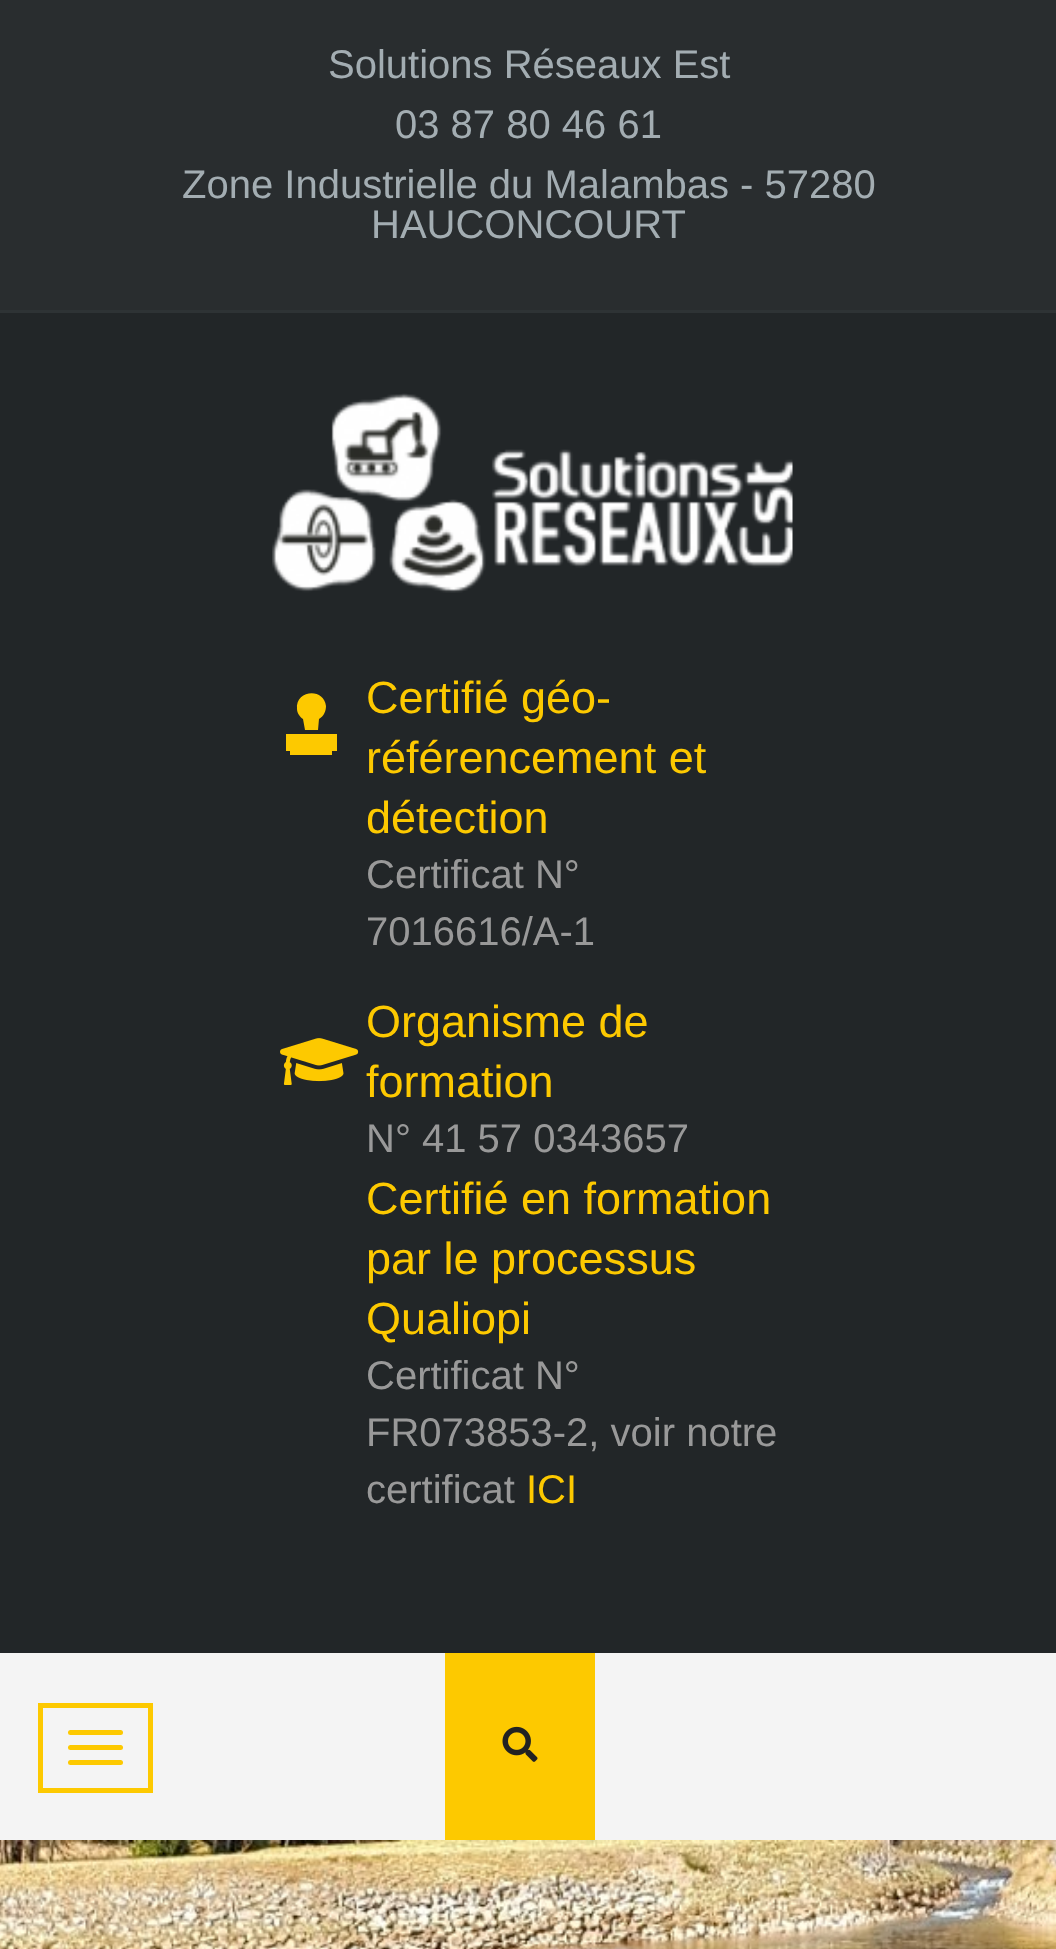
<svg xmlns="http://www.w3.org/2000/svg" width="1056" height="1949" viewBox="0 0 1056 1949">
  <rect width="100%" height="100%" fill="rgb(41,45,47)"/>
  <rect x="0" y="310" width="1056" height="3" fill="rgb(46,51,53)"/>
  <g font-family="Arimo" font-size="40" fill="rgb(163,173,178)">
    <text x="328" y="78">Solutions Réseaux Est</text>
    <text x="395" y="138">03 87 80 46 61</text>
    <text x="182" y="198">Zone Industrielle du Malambas - 57280</text>
    <text x="371" y="238">HAUCONCOURT</text>
  </g>
  <rect x="0" y="313" width="1056" height="1340" fill="rgb(34,38,40)"/>
  <image x="272" y="393" width="521" height="200" href="pic1.png"/>
  <path d="M286 734H337V751H332V755H290V751H286ZM303 719C300 717 297 713 297 709C295 690 324 687 326 706C326 711 324 716 319 719L318 730H305Z" fill="rgb(253,201,0)"/>
  <g font-family="Arimo" font-size="45" fill="rgb(253,201,0)">
    <text>
      <tspan x="366" y="713">Certifié géo-</tspan>
      <tspan x="366" y="773">référencement et</tspan>
      <tspan x="366" y="833">détection</tspan>
    </text>
  </g>
  <g font-family="Arimo" font-size="40" fill="rgb(153,153,153)">
    <text>
      <tspan x="366" y="888">Certificat N°</tspan>
      <tspan x="366" y="945">7016616/A-1</tspan>
    </text>
  </g>
  <image x="280" y="1038" width="79" height="47" href="pic2.png"/>
  <g font-family="Arimo" font-size="45" fill="rgb(253,201,0)">
    <text>
      <tspan x="366" y="1037">Organisme de</tspan>
      <tspan x="366" y="1097">formation</tspan>
    </text>
  </g>
  <text x="366" y="1152" font-family="Arimo" font-size="40" fill="rgb(153,153,153)">N° 41 57 0343657</text>
  <g font-family="Arimo" font-size="45" fill="rgb(253,201,0)">
    <text>
      <tspan x="366" y="1214">Certifié en formation</tspan>
      <tspan x="366" y="1274">par le processus</tspan>
      <tspan x="366" y="1334">Qualiopi</tspan>
    </text>
  </g>
  <g font-family="Arimo" font-size="40" fill="rgb(153,153,153)">
    <text>
      <tspan x="366" y="1389">Certificat N°</tspan>
      <tspan x="366" y="1446">FR073853-2, voir notre</tspan>
      <tspan x="366" y="1503">certificat</tspan>
    </text>
  </g>
  <text x="526" y="1503" font-family="Arimo" font-size="40" fill="rgb(253,201,0)">ICI</text>
  <rect x="0" y="1653" width="1056" height="187" fill="rgb(244,244,244)"/>
  <rect x="40.5" y="1705.5" width="110" height="85" fill="none" stroke="rgb(253,201,0)" stroke-width="5"/>
  <rect x="68" y="1730" width="55" height="5" rx="2.5" fill="rgb(253,201,0)"/>
  <rect x="68" y="1745" width="55" height="5" rx="2.5" fill="rgb(253,201,0)"/>
  <rect x="68" y="1760" width="55" height="5" rx="2.5" fill="rgb(253,201,0)"/>
  <rect x="445" y="1653" width="150" height="187" fill="rgb(253,201,0)"/>
  <image x="502" y="1726" width="36" height="36" href="pic3.png"/>
  <image x="0" y="1840" width="1056" height="109" href="pic4.png"/>
</svg>
